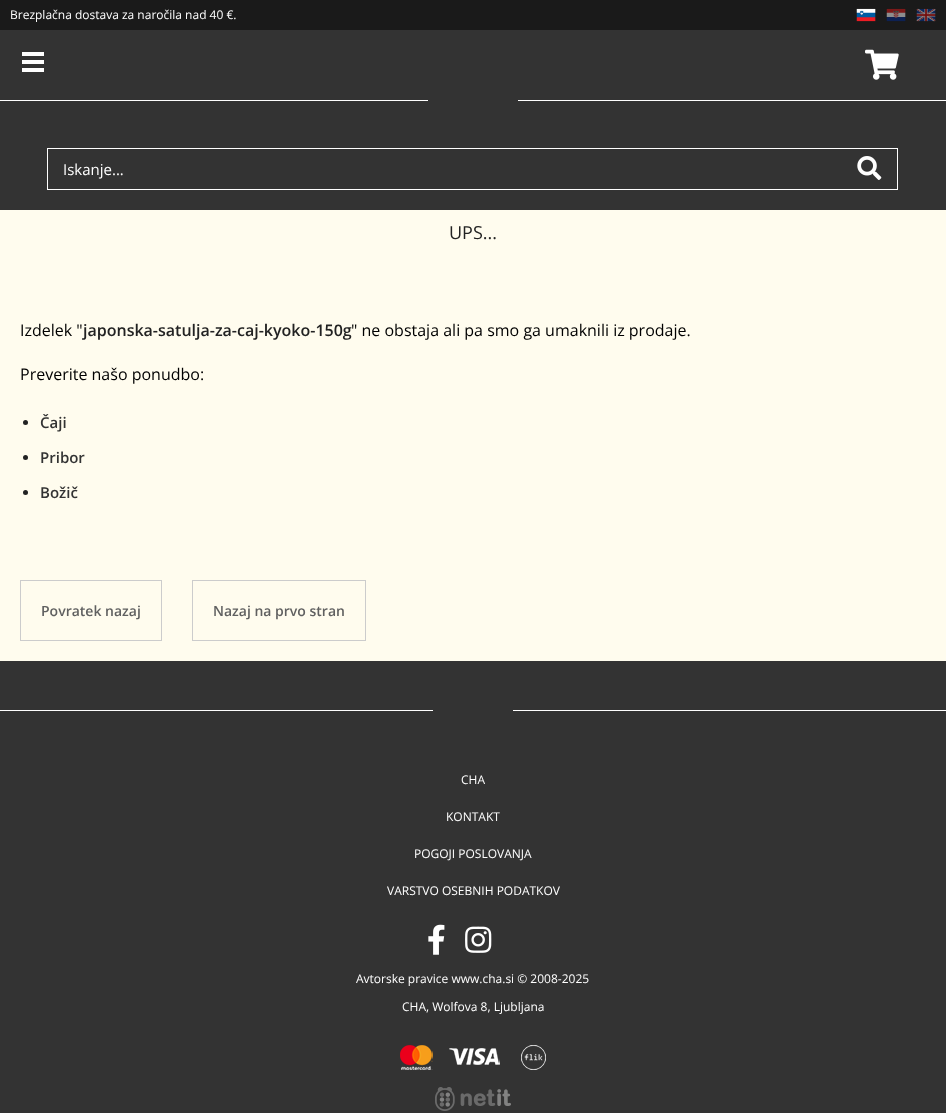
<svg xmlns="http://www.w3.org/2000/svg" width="946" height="1113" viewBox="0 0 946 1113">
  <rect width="100%" height="100%" fill="rgb(255,252,238)"/>
  <rect x="0" y="30" width="946" height="180" fill="rgb(51,51,51)"/>
  <rect x="0" y="0" width="946" height="30" fill="rgb(26,26,26)"/>
  <text x="10" y="19" font-family="Open Sans" font-size="12" fill="rgb(255,255,255)">Brezplačna dostava za naročila nad 40 €.</text>
  <image x="856" y="8" width="20" height="14" href="pic1.png"/>
  <image x="886" y="8" width="20" height="14" href="pic2.png"/>
  <image x="916" y="8" width="20" height="14" href="pic3.png"/>
  <rect x="0" y="100" width="428" height="1" fill="rgb(255,255,255)"/>
  <rect x="518" y="100" width="428" height="1" fill="rgb(255,255,255)"/>
  <rect x="22" y="52" width="22" height="4" fill="rgb(255,255,255)"/>
  <rect x="22" y="60" width="22" height="4" fill="rgb(255,255,255)"/>
  <rect x="22" y="68" width="22" height="4" fill="rgb(255,255,255)"/>
  <image x="865" y="49" width="34" height="31" href="pic4.png"/>
  <rect x="47.5" y="148.5" width="850" height="41" fill="none" stroke="rgb(255,255,255)"/>
  <text x="63" y="175" font-family="Open Sans" font-size="15" fill="rgb(255,255,255)">Iskanje...</text>
  <image x="857" y="156" width="25" height="24" href="pic5.png"/>
  <text x="449" y="239" font-family="Open Sans" font-size="18" fill="rgb(34,34,34)">UPS...</text>
  <text x="20" y="336" font-family="Open Sans" font-size="16" fill="rgb(0,0,0)">Izdelek "</text>
  <text x="83" y="336" font-family="Open Sans" font-size="16" font-weight="600" fill="rgb(34,34,34)">japonska-satulja-za-caj-kyoko-150g</text>
  <g font-family="Open Sans" font-size="16" fill="rgb(0,0,0)">
    <text x="351" y="336">" ne obstaja ali pa smo ga umaknili iz prodaje.</text>
    <text x="20" y="380">Preverite našo ponudbo:</text>
  </g>
  <circle cx="25.5" cy="422.5" r="2.5" fill="rgb(34,34,34)"/>
  <text x="40" y="428" font-family="Open Sans" font-size="15" font-weight="600" fill="rgb(51,51,51)">Čaji</text>
  <circle cx="25.5" cy="457.5" r="2.5" fill="rgb(34,34,34)"/>
  <text x="40" y="463" font-family="Open Sans" font-size="15" font-weight="600" fill="rgb(51,51,51)">Pribor</text>
  <circle cx="25.5" cy="492.5" r="2.5" fill="rgb(34,34,34)"/>
  <text x="40" y="498" font-family="Open Sans" font-size="15" font-weight="600" fill="rgb(51,51,51)">Božič</text>
  <rect x="20.5" y="580.5" width="141" height="60" fill="none" stroke="rgb(204,204,204)"/>
  <text x="41" y="616" font-family="Open Sans" font-size="14" font-weight="600" fill="rgb(96,96,96)">Povratek nazaj</text>
  <rect x="192.5" y="580.5" width="173" height="60" fill="none" stroke="rgb(204,204,204)"/>
  <text x="213" y="616" font-family="Open Sans" font-size="14" font-weight="600" fill="rgb(96,96,96)">Nazaj na prvo stran</text>
  <rect x="0" y="661" width="946" height="452" fill="rgb(51,51,51)"/>
  <rect x="0" y="710" width="946" height="1" fill="rgb(255,255,255)"/>
  <rect x="433" y="710" width="80" height="1" fill="rgb(51,51,51)"/>
  <g font-family="Open Sans" font-size="12" fill="rgb(255,255,255)">
    <text x="461" y="784">CHA</text>
    <text x="446" y="821">KONTAKT</text>
    <text x="414" y="858">POGOJI POSLOVANJA</text>
    <text x="387" y="895">VARSTVO OSEBNIH PODATKOV</text>
  </g>
  <image x="428" y="924" width="17" height="31" href="pic6.png"/>
  <image x="465" y="926" width="27" height="27" href="pic7.png"/>
  <g font-family="Open Sans" font-size="12" fill="rgb(255,255,255)">
    <text x="356" y="983">Avtorske pravice www.cha.si © 2008-2025</text>
    <text x="402" y="1011">CHA, Wolfova 8, Ljubljana</text>
  </g>
  <image x="400" y="1045" width="146" height="25" href="pic8.png"/>
  <image x="435" y="1087" width="76" height="24" href="pic9.png"/>
</svg>
